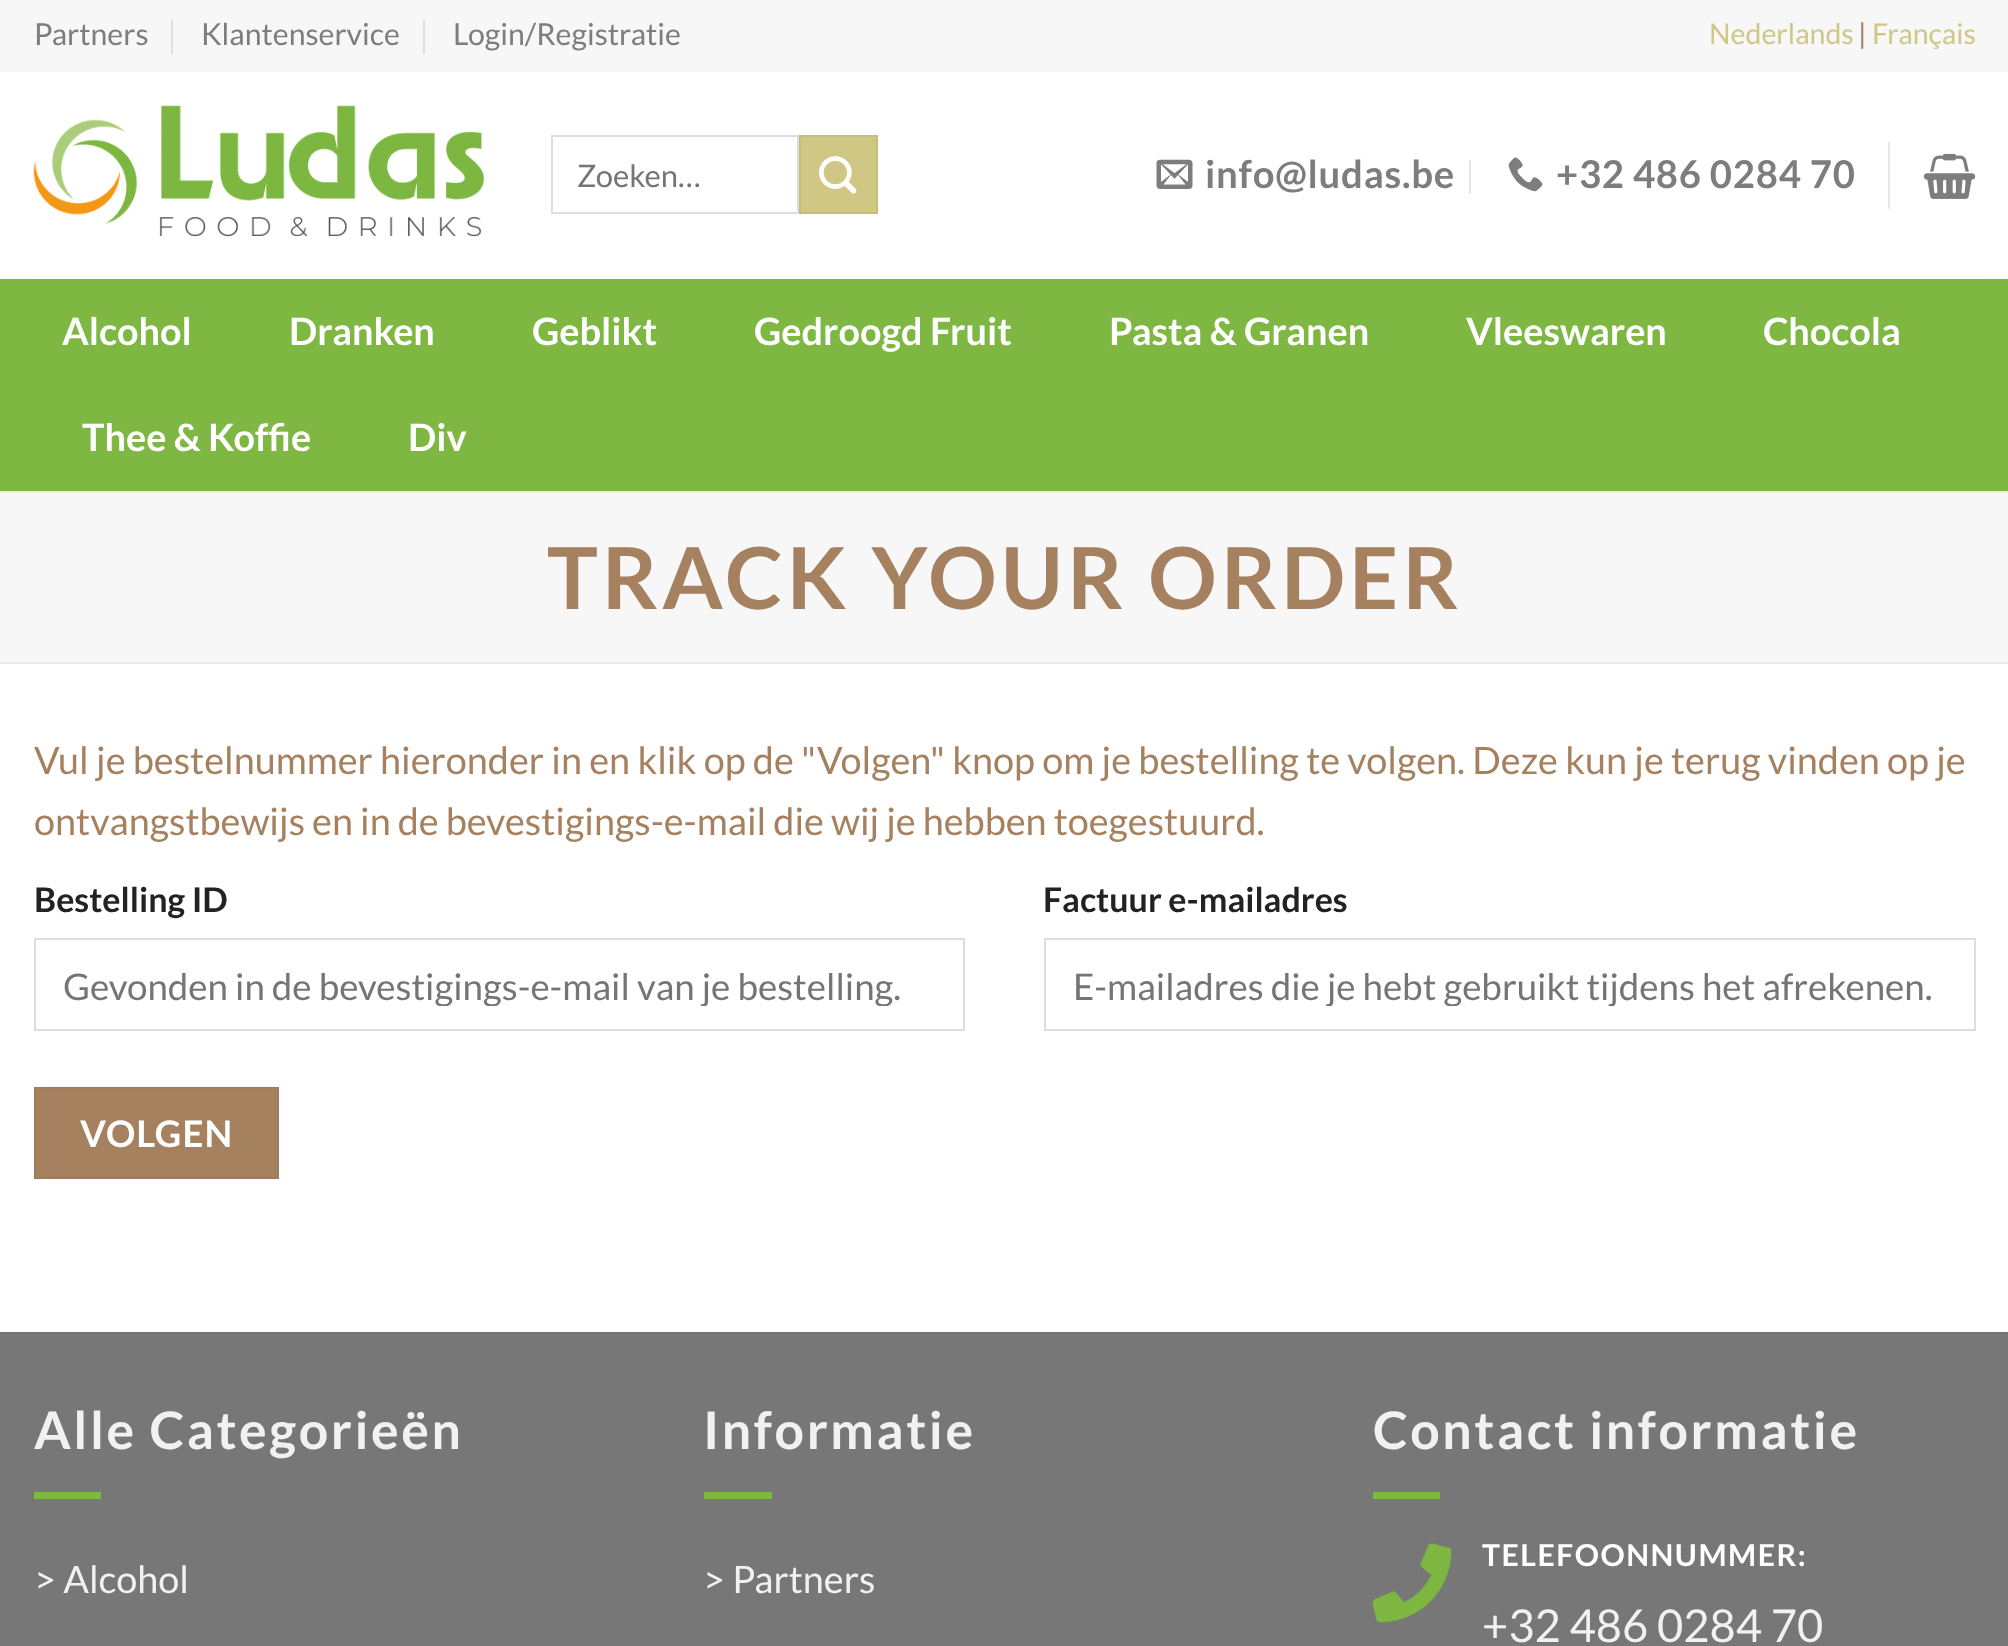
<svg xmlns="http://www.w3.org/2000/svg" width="2008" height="1646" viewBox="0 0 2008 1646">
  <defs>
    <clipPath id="clip1"><rect x="63" y="963" width="873" height="43"/></clipPath>
    <clipPath id="clip2"><rect x="1073" y="963" width="873" height="43"/></clipPath>
  </defs>
  <rect width="100%" height="100%" fill="rgb(255,255,255)"/>
  <rect x="0" y="0" width="2008" height="72" fill="rgb(247,247,247)"/>
  <text x="34" y="45" font-family="Lato" font-size="30.25" fill="rgb(125,125,125)">Partners</text>
  <rect x="171" y="20" width="2" height="34" fill="rgb(222,222,222)"/>
  <text x="201" y="45" font-family="Lato" font-size="30.25" fill="rgb(125,125,125)">Klantenservice</text>
  <rect x="423" y="20" width="2" height="34" fill="rgb(222,222,222)"/>
  <text x="453" y="45" font-family="Lato" font-size="30.25" fill="rgb(125,125,125)">Login/Registratie</text>
  <text x="1709" y="44" font-family="Lato" font-size="28.5" fill="rgb(207,199,131)">Nederlands</text>
  <text x="1858" y="44" font-family="Lato" font-size="28.5" fill="rgb(166,129,96)">|</text>
  <text x="1872" y="44" font-family="Lato" font-size="28.5" fill="rgb(207,199,131)">Français</text>
  <image x="33" y="105" width="451" height="132" href="pic1.png"/>
  <rect x="552" y="136" width="246" height="77" fill="none" stroke="rgb(221,221,221)" stroke-width="2"/>
  <text x="577" y="187" font-family="Lato" font-size="31" fill="rgb(117,117,117)">Zoeken…</text>
  <rect x="800" y="136" width="77" height="77" fill="rgb(207,199,131)" stroke="rgb(197,189,124)" stroke-width="2"/>
  <image x="819" y="156" width="38" height="38" href="pic2.png"/>
  <image x="1156" y="159" width="37" height="30" href="pic3.png"/>
  <text x="1205" y="188" font-family="Lato" font-size="38.25" font-weight="bold" letter-spacing="0.75" fill="rgb(125,125,125)">info@ludas.be</text>
  <rect x="1469" y="160" width="2" height="34" fill="rgb(230,230,230)"/>
  <image x="1508" y="157" width="35" height="35" href="pic4.png"/>
  <text x="1556" y="188" font-family="Lato" font-size="38.25" font-weight="bold" letter-spacing="0.75" fill="rgb(125,125,125)">+32 486 0284 70</text>
  <rect x="1888" y="142" width="2" height="67" fill="rgb(230,230,230)"/>
  <image x="1923" y="153" width="53" height="46" href="pic5.png"/>
  <rect x="0" y="279" width="2008" height="212" fill="rgb(126,183,66)"/>
  <rect x="34" y="279" width="1942" height="2" fill="rgb(130,178,69)"/>
  <g font-family="Lato" font-size="37.8" font-weight="bold" fill="rgb(255,255,255)">
    <text x="62" y="345">Alcohol</text>
    <text x="289" y="345">Dranken</text>
    <text x="532" y="345">Geblikt</text>
    <text x="754" y="345">Gedroogd Fruit</text>
    <text x="1109" y="345">Pasta &amp; Granen</text>
    <text x="1466" y="345">Vleeswaren</text>
    <text x="1763" y="345">Chocola</text>
    <text x="82" y="451">Thee &amp; Koffie</text>
    <text x="408" y="451">Div</text>
  </g>
  <rect x="0" y="493" width="2008" height="169" fill="rgb(247,247,247)"/>
  <rect x="0" y="491" width="2008" height="2" fill="rgb(236,236,236)"/>
  <rect x="0" y="662" width="2008" height="2" fill="rgb(236,236,236)"/>
  <text x="547" y="609" font-family="Lato" font-size="85.5" font-weight="bold" letter-spacing="4.25" fill="rgb(166,129,96)">TRACK YOUR ORDER</text>
  <g font-family="Lato" font-size="37.8" fill="rgb(166,129,96)">
    <text>
      <tspan x="34" y="774">Vul je bestelnummer hieronder in en klik op de "Volgen" knop om je bestelling te volgen. Deze kun je terug vinden op je</tspan>
      <tspan x="34" y="835" word-spacing="-0.25">ontvangstbewijs en in de bevestigings-e-mail die wij je hebben toegestuurd.</tspan>
    </text>
  </g>
  <text x="34" y="912" font-family="Lato" font-size="34" font-weight="bold" fill="rgb(34,34,34)">Bestelling ID</text>
  <rect x="35" y="939" width="929" height="91" fill="none" stroke="rgb(221,221,221)" stroke-width="2"/>
  <g clip-path="url(#clip1)">
    <text x="63" y="1000" font-family="Lato" font-size="36.7" fill="rgb(117,117,117)">Gevonden in de bevestigings-e-mail van je bestelling.</text>
  </g>
  <text x="1043" y="912" font-family="Lato" font-size="34" font-weight="bold" fill="rgb(34,34,34)">Factuur e-mailadres</text>
  <rect x="1045" y="939" width="930" height="91" fill="none" stroke="rgb(221,221,221)" stroke-width="2"/>
  <g clip-path="url(#clip2)">
    <text x="1073" y="1000" font-family="Lato" font-size="36.7" fill="rgb(117,117,117)">E-mailadres die je hebt gebruikt tijdens het afrekenen.</text>
  </g>
  <rect x="35" y="1088" width="243" height="90" fill="rgb(166,129,96)" stroke="rgb(158,123,91)" stroke-width="2"/>
  <text x="80" y="1147" font-family="Lato" font-size="36.7" font-weight="bold" letter-spacing="1" fill="rgb(255,255,255)">VOLGEN</text>
  <rect x="0" y="1334" width="2008" height="312" fill="rgb(119,119,119)"/>
  <rect x="0" y="1332" width="2008" height="2" fill="rgb(113,113,113)"/>
  <text x="34" y="1449" font-family="Lato" font-size="51.75" font-weight="bold" letter-spacing="2.6" fill="rgb(241,241,241)">Alle Categorieën</text>
  <rect x="34" y="1492" width="67" height="7" fill="rgb(123,185,67)"/>
  <text x="34" y="1593" font-family="Lato" font-size="37.8" fill="rgb(241,241,241)">&gt; Alcohol</text>
  <text x="703" y="1449" font-family="Lato" font-size="51.75" font-weight="bold" letter-spacing="2.6" fill="rgb(241,241,241)">Informatie</text>
  <rect x="704" y="1492" width="68" height="7" fill="rgb(123,185,67)"/>
  <text x="703" y="1593" font-family="Lato" font-size="37.8" fill="rgb(241,241,241)">&gt; Partners</text>
  <text x="1373" y="1449" font-family="Lato" font-size="51.75" font-weight="bold" letter-spacing="2.6" fill="rgb(241,241,241)">Contact informatie</text>
  <rect x="1373" y="1492" width="67" height="7" fill="rgb(123,185,67)"/>
  <image x="1372" y="1543" width="80" height="80" href="pic6.png"/>
  <text x="1482" y="1566" font-family="Lato" font-size="30.25" font-weight="bold" letter-spacing="1.5" fill="rgb(255,255,255)">TELEFOONNUMMER:</text>
  <text x="1482" y="1642" font-family="Lato" font-size="45.25" fill="rgb(241,241,241)">+32 486 0284 70</text>
</svg>
